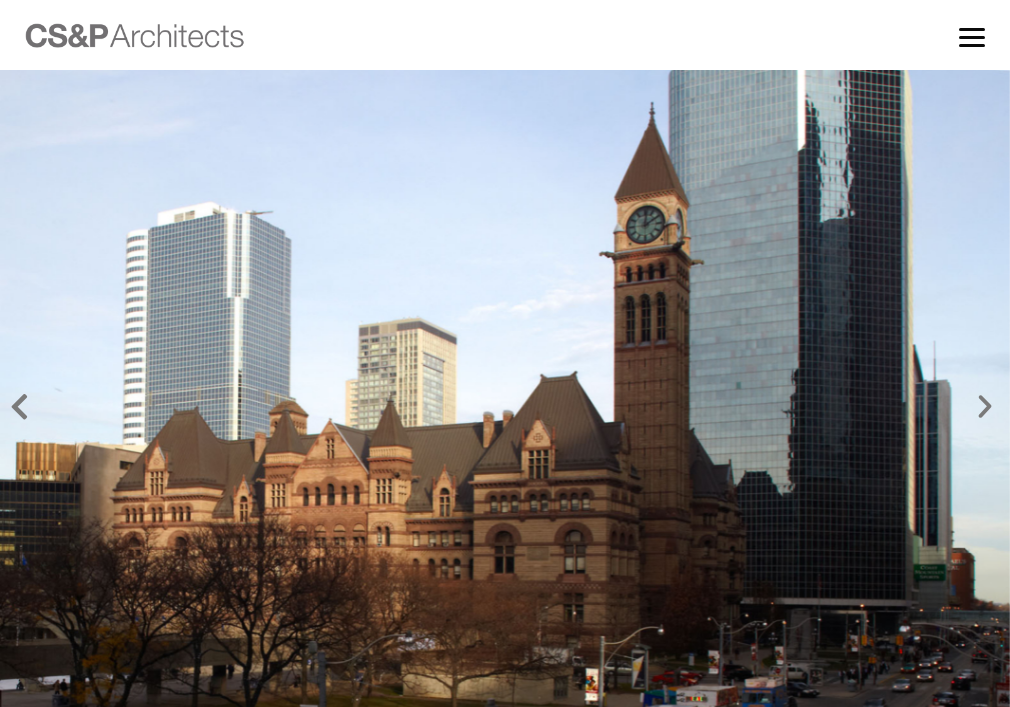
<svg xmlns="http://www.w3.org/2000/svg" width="1010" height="707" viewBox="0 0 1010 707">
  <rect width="100%" height="100%" fill="rgb(255,255,255)"/>
  <image x="25" y="23" width="219" height="25" href="pic1.png"/>
  <rect x="959" y="36" width="26" height="3" rx="1.5" fill="rgb(11,11,11)"/>
  <rect x="959" y="28" width="26" height="3" rx="1.5" fill="rgb(11,11,11)"/>
  <rect x="959" y="44" width="26" height="3" rx="1.5" fill="rgb(11,11,11)"/>
  <image x="0" y="70" width="1010" height="637" href="pic2.png"/>
  <image x="11" y="394" width="17" height="26" href="pic3.png"/>
  <image x="978" y="395" width="14" height="23" href="pic4.png"/>
</svg>
